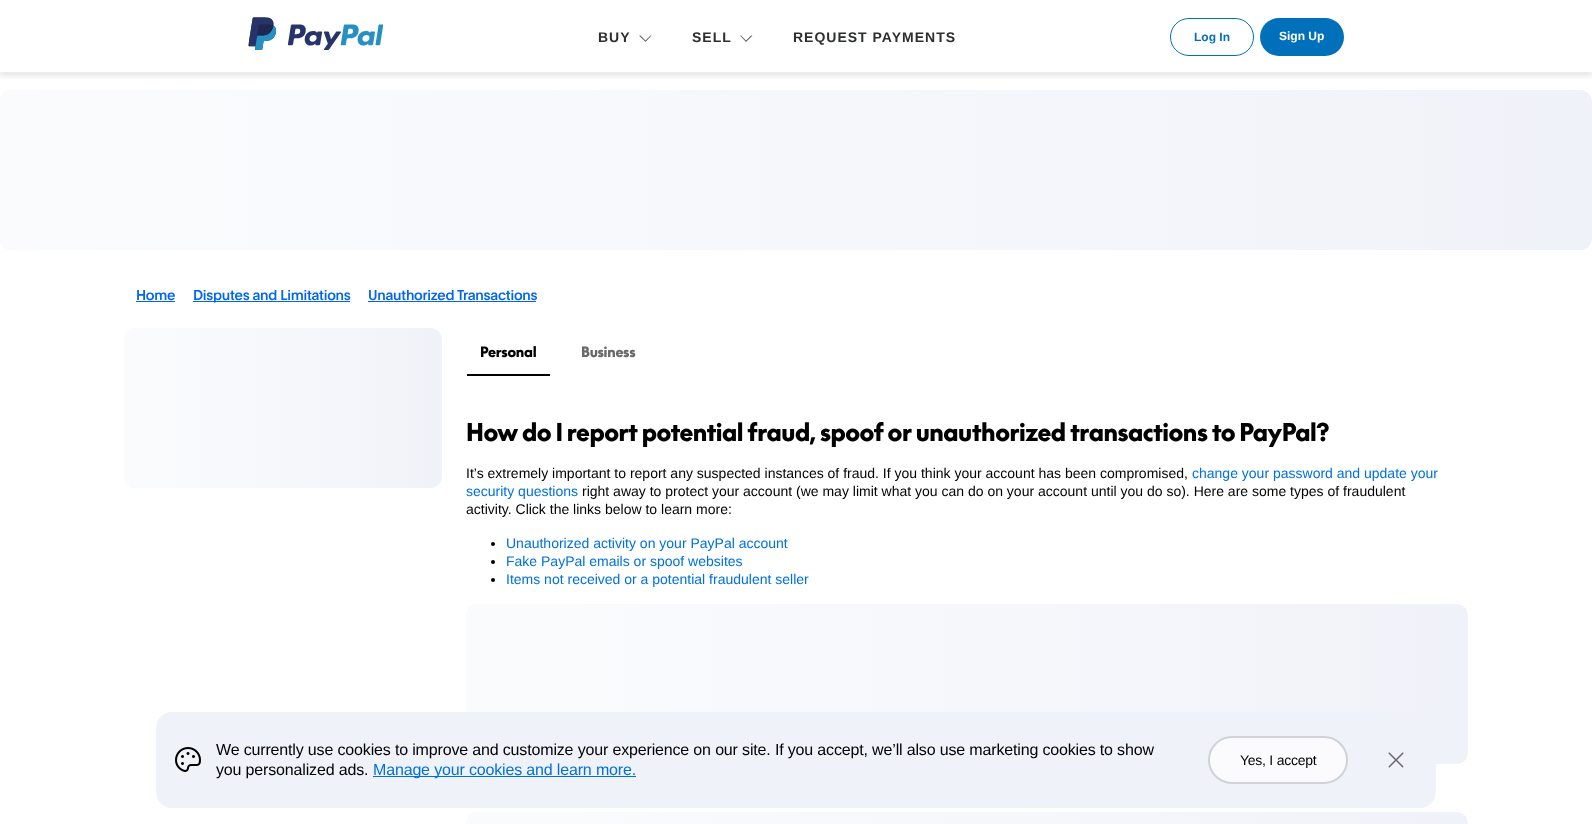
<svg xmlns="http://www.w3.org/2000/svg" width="1592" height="824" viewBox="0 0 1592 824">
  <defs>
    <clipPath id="clip1"><rect x="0" y="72" width="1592" height="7"/></clipPath>
    <clipPath id="clip2"><rect x="0" y="90" width="1592" height="160" rx="12"/></clipPath>
    <linearGradient id="g1" gradientUnits="userSpaceOnUse" x1="-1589" y1="170" x2="1591" y2="170"><stop offset="0" stop-color="rgb(240,242,249)"/><stop offset="0.5" stop-color="rgb(255,255,255)" stop-opacity="0.7"/><stop offset="1" stop-color="rgb(240,242,249)"/></linearGradient>
    <clipPath id="clip3"><rect x="124" y="328" width="318" height="160" rx="12"/></clipPath>
    <linearGradient id="g2" gradientUnits="userSpaceOnUse" x1="-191" y1="408" x2="441" y2="408"><stop offset="0" stop-color="rgb(240,242,249)"/><stop offset="0.5" stop-color="rgb(255,255,255)" stop-opacity="0.7"/><stop offset="1" stop-color="rgb(240,242,249)"/></linearGradient>
    <linearGradient id="g3" gradientUnits="userSpaceOnUse" x1="441" y1="408" x2="1073" y2="408"><stop offset="0" stop-color="rgb(240,242,249)"/><stop offset="0.5" stop-color="rgb(255,255,255)" stop-opacity="0.7"/><stop offset="1" stop-color="rgb(240,242,249)"/></linearGradient>
    <clipPath id="clip4"><rect x="466" y="604" width="1002" height="160" rx="12"/></clipPath>
    <linearGradient id="g4" gradientUnits="userSpaceOnUse" x1="-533" y1="684" x2="1467" y2="684"><stop offset="0" stop-color="rgb(240,242,249)"/><stop offset="0.5" stop-color="rgb(255,255,255)" stop-opacity="0.7"/><stop offset="1" stop-color="rgb(240,242,249)"/></linearGradient>
    <clipPath id="clip5"><rect x="466" y="812" width="1002" height="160" rx="12"/></clipPath>
    <linearGradient id="g5" gradientUnits="userSpaceOnUse" x1="-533" y1="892" x2="1467" y2="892"><stop offset="0" stop-color="rgb(240,242,249)"/><stop offset="0.5" stop-color="rgb(255,255,255)" stop-opacity="0.7"/><stop offset="1" stop-color="rgb(240,242,249)"/></linearGradient>
  </defs>
  <rect width="100%" height="100%" fill="rgb(255,255,255)"/>
  <g clip-path="url(#clip1)">
    <rect x="-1" y="-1" width="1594" height="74" fill="rgba(0,0,0,0.2)" filter="blur(5px)"/>
  </g>
  <image x="248" y="17" width="136" height="33" href="pic1.png"/>
  <text x="598" y="42" font-family="Liberation Sans" font-size="14" font-weight="bold" letter-spacing="1" fill="rgb(44,46,47)">BUY</text>
  <path d="M651.5 35.5L645.5 42V40.5L650.5 35.5Z" fill="rgb(97,98,99)"/>
  <path d="M645.5 42L639 35.5H640.5L645.5 40.5Z" fill="rgb(97,98,99)"/>
  <text x="692" y="42" font-family="Liberation Sans" font-size="14" font-weight="bold" letter-spacing="1" fill="rgb(44,46,47)">SELL</text>
  <path d="M752.5 35.5L746 42V40.5L751 35.5ZM746 42L740 35.5H741L746 40.5Z" fill="rgb(97,98,99)"/>
  <text x="793" y="42" font-family="Liberation Sans" font-size="14" font-weight="bold" letter-spacing="1" fill="rgb(44,46,47)">REQUEST PAYMENTS</text>
  <rect x="1170.5" y="18.5" width="83" height="37" rx="18.5" fill="none" stroke="rgb(0,112,186)"/>
  <text x="1194" y="41" font-family="Liberation Sans" font-size="12" font-weight="bold" fill="rgb(0,112,186)">Log In</text>
  <rect x="1260" y="18" width="84" height="38" rx="19" fill="rgb(0,112,186)"/>
  <text x="1279" y="40" font-family="Liberation Sans" font-size="12" font-weight="bold" fill="rgb(255,255,255)">Sign Up</text>
  <rect x="0" y="72" width="1592" height="1" fill="rgba(255,255,255,0.3)"/>
  <rect x="0" y="90" width="1592" height="160" rx="12" fill="rgb(240,242,249)"/>
  <g clip-path="url(#clip2)">
    <path d="M12 90H1591V250H12C5.5 250 0 244.5 0 238V102C0 95.5 5.5 90 12 90Z" fill="url(#g1)"/>
  </g>
  <text x="136" y="300" font-family="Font" font-size="14" font-weight="500" letter-spacing="-0.25" fill="rgb(0,101,242)">Home</text>
  <rect x="136" y="301" width="39" height="1" fill="rgb(0,101,242)"/>
  <rect x="193" y="301" width="157" height="1" fill="rgb(0,101,242)"/>
  <g font-family="Font" font-size="14" font-weight="500" letter-spacing="-0.25" fill="rgb(0,101,242)">
    <text x="193" y="300">Disputes and Limitations</text>
    <text x="368" y="300">Unauthorized Transactions</text>
  </g>
  <rect x="368" y="301" width="168" height="1" fill="rgb(0,101,242)"/>
  <rect x="124" y="328" width="318" height="160" rx="12" fill="rgb(240,242,249)"/>
  <g clip-path="url(#clip3)">
    <path d="M136 328H441V488H136C129.5 488 124 482.5 124 476V340C124 333.5 129.5 328 136 328Z" fill="url(#g2)"/>
    <rect x="441" y="328" width="1" height="160" fill="url(#g3)"/>
  </g>
  <text x="480" y="357" font-family="Font" font-size="14" font-weight="900" letter-spacing="-0.25" fill="rgb(0,0,0)">Personal</text>
  <rect x="467" y="374" width="83" height="2" fill="rgb(0,0,0)"/>
  <text x="581" y="357" font-family="Font" font-size="14" font-weight="900" letter-spacing="-0.25" fill="rgb(105,105,105)">Business</text>
  <text x="466" y="441" font-family="Font" font-size="24" font-weight="900" letter-spacing="-0.48" fill="rgb(0,0,0)">How do I report potential fraud, spoof or unauthorized transactions to PayPal?</text>
  <text x="466" y="478" font-family="Liberation Sans" font-size="14" fill="rgb(0,0,0)">It’s extremely important to report any suspected instances of fraud. If you think your account has been compromised,</text>
  <g font-family="Liberation Sans" font-size="14" fill="rgb(0,112,224)">
    <text x="1192" y="478">change your password and update your</text>
    <text x="466" y="496">security questions</text>
  </g>
  <g font-family="Liberation Sans" font-size="14" fill="rgb(0,0,0)">
    <text x="582" y="496">right away to protect your account (we may limit what you can do on your account until you do so). Here are some types of fraudulent</text>
    <text x="466" y="514">activity. Click the links below to learn more:</text>
  </g>
  <circle cx="493" cy="544" r="2" fill="rgb(0,0,0)"/>
  <text x="506" y="548" font-family="Liberation Sans" font-size="14" fill="rgb(0,112,224)">Unauthorized activity on your PayPal account</text>
  <circle cx="493" cy="562" r="2" fill="rgb(0,0,0)"/>
  <text x="506" y="566" font-family="Liberation Sans" font-size="14" fill="rgb(0,112,224)">Fake PayPal emails or spoof websites</text>
  <circle cx="493" cy="580" r="2" fill="rgb(0,0,0)"/>
  <text x="506" y="584" font-family="Liberation Sans" font-size="14" fill="rgb(0,112,224)">Items not received or a potential fraudulent seller</text>
  <rect x="466" y="604" width="1002" height="160" rx="12" fill="rgb(240,242,249)"/>
  <g clip-path="url(#clip4)">
    <path d="M478 604H1467V764H478C471.5 764 466 758.5 466 752V616C466 609.5 471.5 604 478 604Z" fill="url(#g4)"/>
  </g>
  <rect x="466" y="812" width="1002" height="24" rx="12" fill="rgb(240,242,249)"/>
  <g clip-path="url(#clip5)">
    <path d="M478 812H1467V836H478C471.5 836 466 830.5 466 824C466 817.5 471.5 812 478 812Z" fill="url(#g5)"/>
  </g>
  <rect x="156" y="712" width="1280" height="96" rx="16" fill="rgb(240,242,249)"/>
  <image x="175" y="747" width="26" height="25" href="pic2.png"/>
  <g font-family="Liberation Sans" font-size="16" letter-spacing="-0.16" fill="rgb(0,0,0)">
    <text>
      <tspan x="216" y="755">We currently use cookies to improve and customize your experience on our site. If you accept, we’ll also use marketing cookies to show</tspan>
      <tspan x="216" y="775">you personalized ads.</tspan>
    </text>
  </g>
  <rect x="373" y="776" width="263" height="1" fill="rgb(0,112,224)"/>
  <text x="373" y="775" font-family="Liberation Sans" font-size="16" letter-spacing="-0.16" fill="rgb(0,112,224)">Manage your cookies and learn more.</text>
  <rect x="1209" y="737" width="138" height="46" rx="23" fill="rgb(251,251,253)" stroke="rgb(207,211,216)" stroke-width="2"/>
  <text x="1240" y="765" font-family="Liberation Sans" font-size="14" letter-spacing="-0.25" fill="rgb(0,0,0)">Yes, I accept</text>
  <image x="1388" y="752" width="16" height="16" href="pic3.png"/>
</svg>
